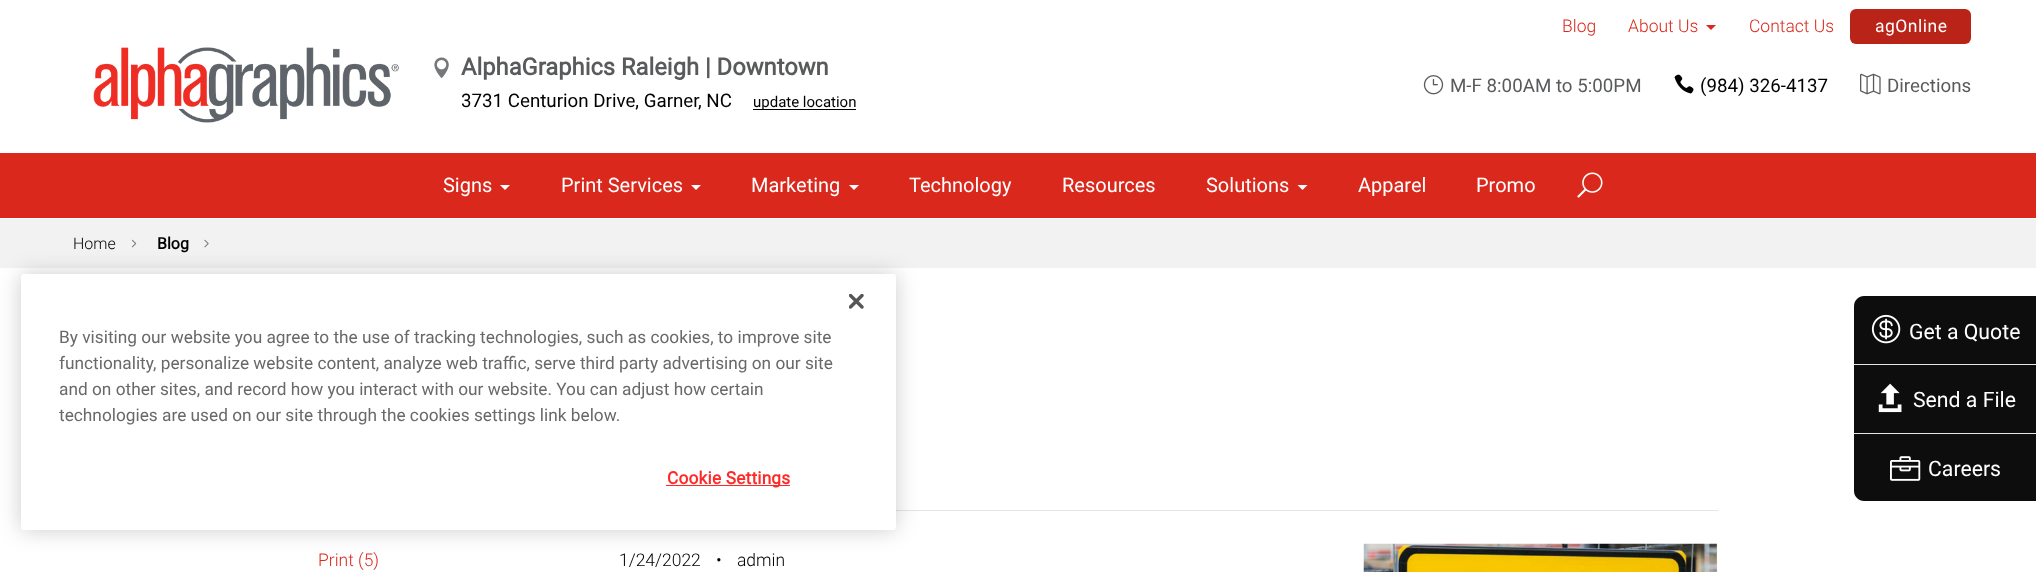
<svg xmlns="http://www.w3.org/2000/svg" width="2036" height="572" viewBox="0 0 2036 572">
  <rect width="100%" height="100%" fill="rgb(255,255,255)"/>
  <rect x="0" y="219" width="2036" height="49" fill="rgb(242,242,242)"/>
  <text x="73" y="249" font-family="Roboto" font-size="16" font-weight="300" fill="rgb(0,0,0)">Home</text>
  <image x="131" y="239" width="6" height="9" href="pic1.png"/>
  <text x="157" y="249" font-family="Roboto" font-size="16" font-weight="bold" fill="rgb(0,0,0)">Blog</text>
  <image x="204" y="239" width="5" height="9" href="pic2.png"/>
  <text x="318" y="566" font-family="Roboto" font-size="17.5" font-weight="300" fill="rgb(218,41,28)">Print (5)</text>
  <rect x="896" y="510" width="822" height="1" fill="rgb(229,229,229)"/>
  <g font-family="Roboto" font-size="17.5" font-weight="300" fill="rgb(0,0,0)">
    <text x="619" y="566">1/24/2022</text>
    <text x="716" y="566">•</text>
    <text x="737" y="566">admin</text>
  </g>
  <image x="1363" y="543" width="355" height="29" href="pic3.png"/>
  <g font-family="Roboto" font-size="17.5" font-weight="300" fill="rgb(218,41,28)">
    <text x="1562" y="32">Blog</text>
    <text x="1628" y="32">About Us</text>
  </g>
  <path d="M1706 25H1716L1711 30Z" fill="rgb(218,41,28)"/>
  <text x="1749" y="32" font-family="Roboto" font-size="17.5" font-weight="300" fill="rgb(218,41,28)">Contact Us</text>
  <rect x="1850" y="9" width="121" height="35" rx="6" fill="rgb(185,35,24)"/>
  <text x="1875" y="32" font-family="Roboto" font-size="17.5" letter-spacing="0.5" fill="rgb(255,255,255)">agOnline</text>
  <image x="93" y="47" width="306" height="76" href="pic4.png"/>
  <image x="434" y="57" width="15" height="21" href="pic5.png"/>
  <text x="461" y="75" font-family="Roboto" font-size="23.75" font-weight="bold" fill="rgb(88,90,92)">AlphaGraphics Raleigh | Downtown</text>
  <g font-family="Roboto" font-size="18.75" fill="rgb(0,0,0)">
    <text x="461" y="107">3731 Centurion Drive, Garner</text>
    <text x="698" y="107">, NC</text>
  </g>
  <rect x="753" y="109" width="103" height="1" fill="rgb(0,0,0)"/>
  <text x="753" y="107" font-family="Roboto" font-size="15" fill="rgb(0,0,0)">update location</text>
  <image x="1423" y="75" width="21" height="20" href="pic6.png"/>
  <text x="1450" y="92" font-family="Roboto" font-size="18.75" fill="rgb(88,90,92)">M-F 8:00AM to 5:00PM</text>
  <image x="1674" y="74" width="20" height="20" href="pic7.png"/>
  <text x="1700" y="92" font-family="Roboto" font-size="18.75" fill="rgb(0,0,0)">(984) 326-4137</text>
  <image x="1860" y="73" width="21" height="22" href="pic8.png"/>
  <text x="1887" y="92" font-family="Roboto" font-size="18.75" fill="rgb(88,90,92)">Directions</text>
  <rect x="0" y="153" width="2036" height="65" fill="rgb(218,41,28)"/>
  <text x="443" y="192" font-family="Roboto" font-size="20" fill="rgb(255,255,255)">Signs</text>
  <path d="M500 185H510L505 190Z" fill="rgb(255,255,255)"/>
  <text x="561" y="192" font-family="Roboto" font-size="20" fill="rgb(255,255,255)">Print Services</text>
  <path d="M691 185H701L696 190Z" fill="rgb(255,255,255)"/>
  <text x="751" y="192" font-family="Roboto" font-size="20" fill="rgb(255,255,255)">Marketing</text>
  <path d="M849 185H859L854 190Z" fill="rgb(255,255,255)"/>
  <g font-family="Roboto" font-size="20" fill="rgb(255,255,255)">
    <text x="909" y="192">Technology</text>
    <text x="1062" y="192">Resources</text>
    <text x="1206" y="192">Solutions</text>
  </g>
  <path d="M1297.5 185H1307.5L1302.5 190Z" fill="rgb(255,255,255)"/>
  <g font-family="Roboto" font-size="20" fill="rgb(255,255,255)">
    <text x="1358" y="192">Apparel</text>
    <text x="1476" y="192">Promo</text>
  </g>
  <image x="1577" y="172" width="26" height="26" href="pic9.png"/>
  <path d="M1864 296H2036V365H1854V306C1854 300.5 1858.5 296 1864 296Z" fill="rgb(13,13,13)"/>
  <rect x="1854" y="364" width="182" height="1" fill="rgb(229,229,229)"/>
  <image x="1871" y="314" width="30" height="30" href="pic10.png"/>
  <text x="1909" y="339" font-family="Roboto" font-size="21.25" fill="rgb(255,255,255)">Get a Quote</text>
  <rect x="1854" y="365" width="182" height="68" fill="rgb(13,13,13)"/>
  <rect x="1854" y="433" width="182" height="1" fill="rgb(229,229,229)"/>
  <image x="1878" y="383" width="24" height="30" href="pic11.png"/>
  <text x="1913" y="407" font-family="Roboto" font-size="21.25" fill="rgb(255,255,255)">Send a File</text>
  <path d="M1854 434H2036V501H1864C1858.5 501 1854 496.5 1854 491Z" fill="rgb(13,13,13)"/>
  <image x="1890" y="456" width="31" height="25" href="pic12.png"/>
  <text x="1928" y="476" font-family="Roboto" font-size="21.25" fill="rgb(255,255,255)">Careers</text>
  <rect x="21" y="274" width="875" height="256" rx="3" fill="rgba(0,0,0,0.2)" filter="blur(11px)"/>
  <rect x="21" y="274" width="875" height="256" rx="3" fill="rgb(255,255,255)"/>
  <image x="849" y="294" width="15" height="15" href="pic13.png"/>
  <g font-family="Roboto" font-size="17.3" fill="rgb(105,105,105)">
    <text>
      <tspan x="59" y="343">By visiting our website you agree to the use of tracking technologies, such as cookies, to improve site</tspan>
      <tspan x="59" y="369">functionality, personalize website content, analyze web traffic, serve third party advertising on our site</tspan>
      <tspan x="59" y="395">and on other sites, and record how you interact with our website. You can adjust how certain</tspan>
      <tspan x="59" y="421">technologies are used on our site through the cookies settings link below.</tspan>
    </text>
  </g>
  <rect x="666" y="485" width="124" height="1" fill="rgb(255,41,39)"/>
  <text x="667" y="484" font-family="Roboto" font-size="17.3" font-weight="bold" letter-spacing="0.2" fill="rgb(255,41,39)">Cookie Settings</text>
</svg>
